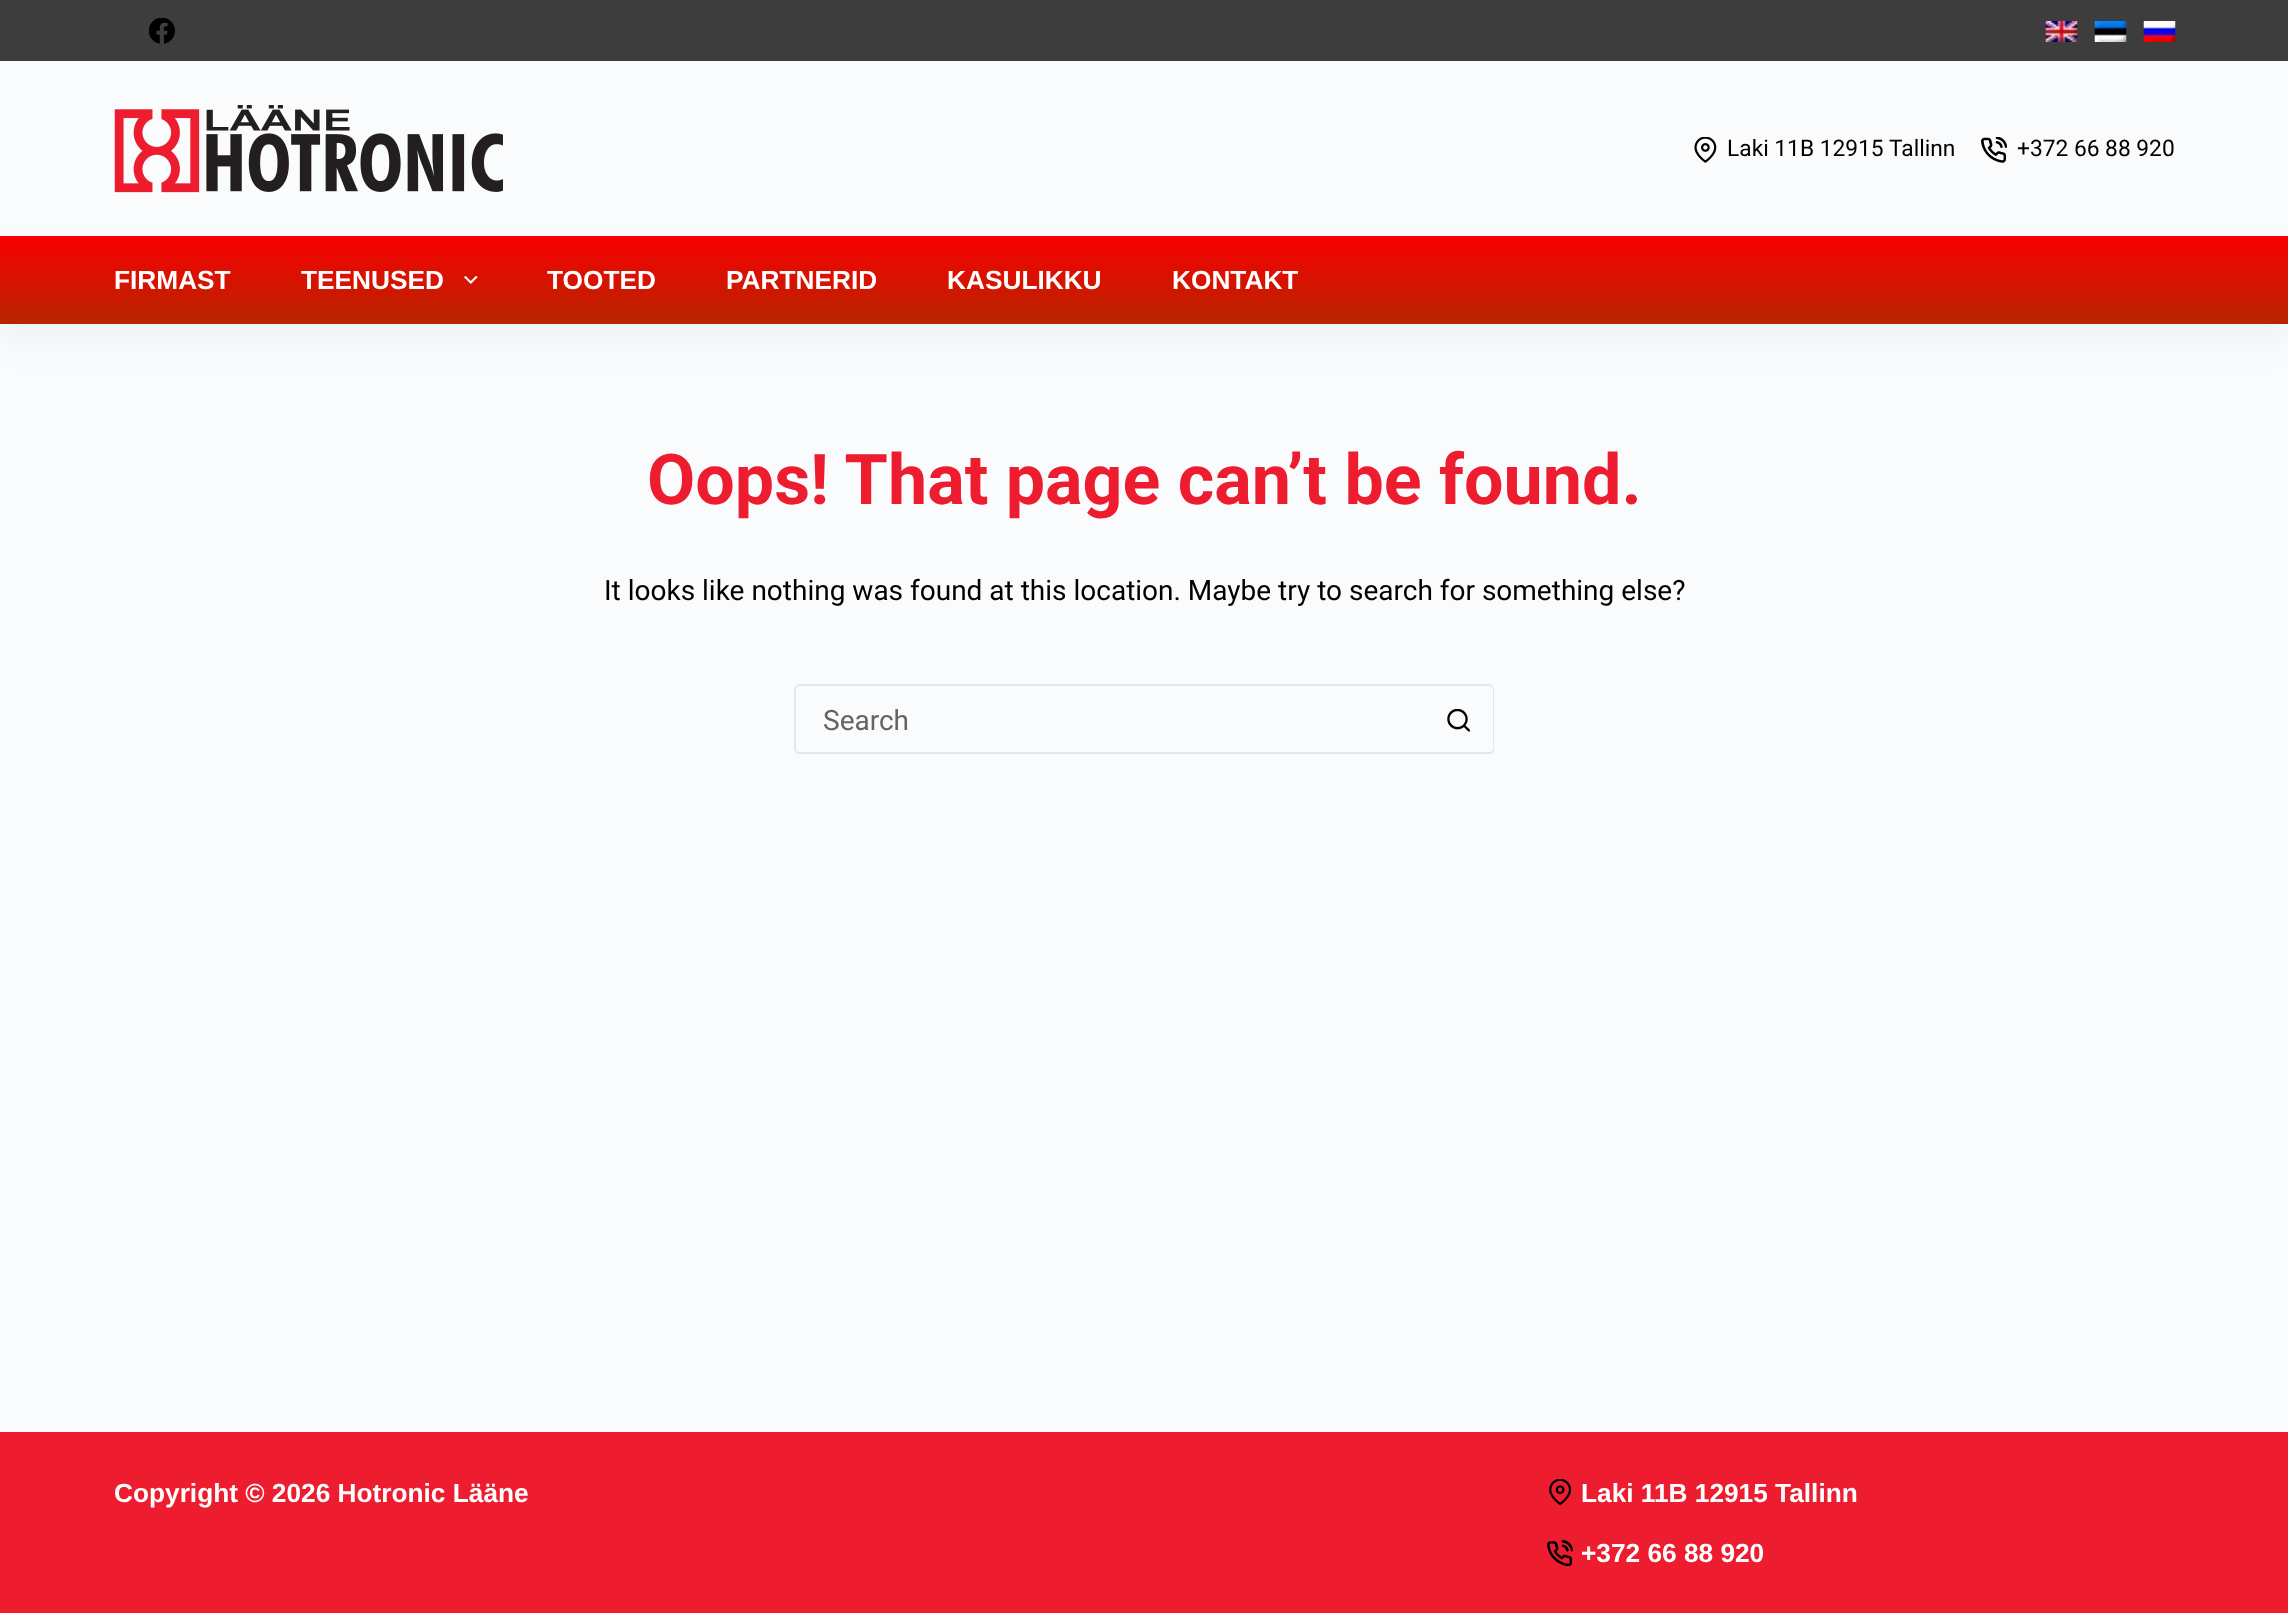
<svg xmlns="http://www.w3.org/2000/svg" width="2288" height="1613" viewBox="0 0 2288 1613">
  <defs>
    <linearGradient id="g1" gradientUnits="userSpaceOnUse" x1="1145" y1="236" x2="1145" y2="324"><stop offset="0" stop-color="rgb(247,0,0)"/><stop offset="1" stop-color="rgb(183,37,0)"/></linearGradient>
  </defs>
  <rect width="100%" height="100%" fill="rgb(250,251,252)"/>
  <rect x="0" y="0" width="2288" height="61" fill="rgb(61,61,61)"/>
  <image x="149" y="18" width="26" height="26" href="pic1.png"/>
  <image x="2045" y="21" width="33" height="21" href="pic2.png"/>
  <image x="2094" y="21" width="33" height="21" href="pic3.png"/>
  <image x="2143" y="21" width="33" height="21" href="pic4.png"/>
  <image x="114" y="105" width="389" height="88" href="pic5.png"/>
  <image x="1694" y="137" width="23" height="26" href="pic6.png"/>
  <g font-family="Roboto" font-size="22.75" fill="rgb(0,0,0)">
    <text x="1727" y="156">Laki 11B 12915</text>
    <text x="1889" y="156">Tallinn</text>
  </g>
  <image x="1981" y="137" width="26" height="26" href="pic7.png"/>
  <text x="2017" y="156" font-family="Roboto" font-size="22.75" fill="rgb(0,0,0)">+372 66 88 920</text>
  <rect x="0" y="254" width="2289" height="87" fill="rgba(44,62,80,0.05)" filter="blur(17.5px)"/>
  <rect x="0" y="236" width="2288" height="88" fill="url(#g1)"/>
  <g font-family="Liberation Sans" font-size="26.25" font-weight="bold" fill="rgb(255,255,255)">
    <text x="114" y="289">FIRMAST</text>
    <text x="301" y="289">TEENUSED</text>
  </g>
  <image x="464" y="276" width="14" height="8" href="pic8.png"/>
  <g font-family="Liberation Sans" font-size="26.25" font-weight="bold" fill="rgb(255,255,255)">
    <text x="547" y="289">TOOTED</text>
    <text x="726" y="289">PARTNERID</text>
    <text x="947" y="289">KASULIKKU</text>
    <text x="1172" y="289">KONTAKT</text>
  </g>
  <text x="647" y="504" font-family="Roboto" font-size="70" font-weight="bold" fill="rgb(237,28,46)">Oops! That page can’t be found.</text>
  <text x="604" y="600" font-family="Roboto" font-size="28" fill="rgb(0,0,0)">It looks like nothing was found at this location. Maybe try to search for something else?</text>
  <path d="M800 684H1424V754H800C797 754 794 752 794 749V690C794 687 797 684 800 684ZM800 686H1424V752H800C798 752 796 751 796 749V690C796 688 798 686 800 686Z" fill="rgb(225,232,237)" fill-rule="evenodd"/>
  <text x="823" y="730" font-family="Roboto" font-size="28" fill="rgb(100,100,101)">Search</text>
  <path d="M1424 684H1489C1492 684 1494 687 1494 690V749C1494 752 1492 754 1489 754H1424ZM1424 686H1489C1491 686 1493 688 1493 690V749C1493 751 1491 752 1489 752H1424Z" fill="rgb(225,232,237)" fill-rule="evenodd"/>
  <image x="1447" y="709" width="23" height="23" href="pic9.png"/>
  <rect x="0" y="1432" width="2288" height="181" fill="rgb(237,28,46)"/>
  <text x="114" y="1502" font-family="Liberation Sans" font-size="26.25" font-weight="bold" fill="rgb(255,255,255)">Copyright © 2026 Hotronic Lääne</text>
  <image x="1549" y="1479" width="23" height="26" href="pic10.png"/>
  <text x="1581" y="1502" font-family="Liberation Sans" font-size="26.25" font-weight="bold" fill="rgb(255,255,255)">Laki 11B 12915 Tallinn</text>
  <image x="1547" y="1540" width="26" height="26" href="pic11.png"/>
  <text x="1581" y="1562" font-family="Liberation Sans" font-size="26.25" font-weight="bold" fill="rgb(255,255,255)">+372 66 88 920</text>
</svg>
